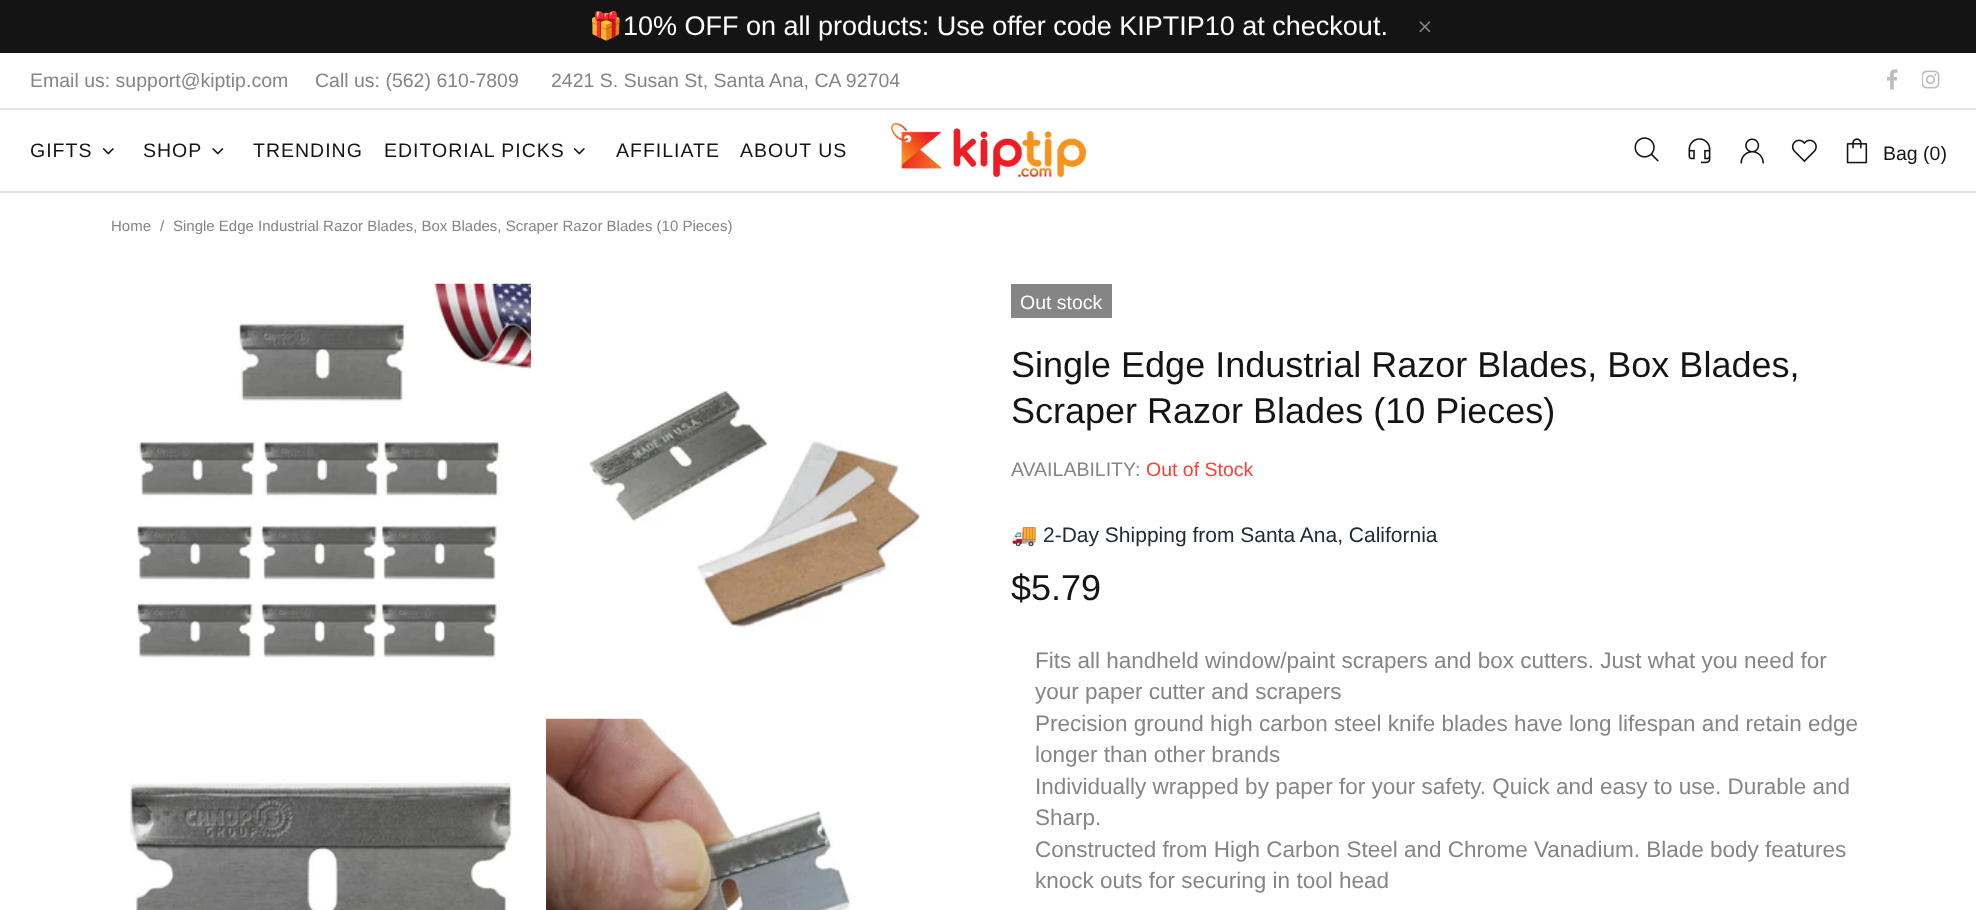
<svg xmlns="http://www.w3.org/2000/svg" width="1976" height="910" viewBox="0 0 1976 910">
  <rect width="100%" height="100%" fill="rgb(255,255,255)"/>
  <rect x="0" y="0" width="1976" height="53" fill="rgb(20,20,20)"/>
  <text x="589" y="35" font-family="Noto Color Emoji" font-size="27" fill="rgb(255,255,255)">🎁</text>
  <text x="623" y="35" font-family="Arimo" font-size="27" fill="rgb(255,255,255)">10% OFF on all products: Use offer code KIPTIP10 at checkout.</text>
  <image x="1419" y="21" width="12" height="12" href="pic1.png"/>
  <rect x="0" y="108" width="1976" height="2" fill="rgb(229,229,229)"/>
  <g font-family="Arimo" font-size="19.5" fill="rgb(133,133,133)">
    <text x="30" y="87">Email us: support@kiptip.com</text>
    <text x="315" y="87">Call us: (562) 610-7809</text>
    <text x="551" y="87">2421 S. Susan St, Santa Ana, CA 92704</text>
  </g>
  <image x="1887" y="69" width="11" height="21" href="pic2.png"/>
  <image x="1922" y="70" width="18" height="19" href="pic3.png"/>
  <rect x="0" y="191" width="1976" height="2" fill="rgb(229,229,229)"/>
  <text x="30" y="157" font-family="Arimo" font-size="19.5" letter-spacing="1" fill="rgb(20,20,20)">GIFTS</text>
  <image x="102" y="148" width="12" height="7" href="pic4.png"/>
  <text x="143" y="157" font-family="Arimo" font-size="19.5" letter-spacing="1" fill="rgb(20,20,20)">SHOP</text>
  <image x="212" y="148" width="12" height="7" href="pic5.png"/>
  <g font-family="Arimo" font-size="19.5" letter-spacing="1" fill="rgb(20,20,20)">
    <text x="253" y="157">TRENDING</text>
    <text x="384" y="157">EDITORIAL PICKS</text>
  </g>
  <image x="573" y="148" width="12" height="7" href="pic4.png"/>
  <g font-family="Arimo" font-size="19.5" letter-spacing="1" fill="rgb(20,20,20)">
    <text x="616" y="157">AFFILIATE</text>
    <text x="740" y="157">ABOUT US</text>
  </g>
  <image x="891" y="123" width="195" height="54" href="pic6.png"/>
  <image x="1634" y="137" width="25" height="25" href="pic7.png"/>
  <image x="1688" y="138" width="23" height="26" href="pic8.png"/>
  <image x="1740" y="138" width="24" height="26" href="pic9.png"/>
  <image x="1791" y="139" width="26" height="24" href="pic10.png"/>
  <image x="1846" y="138" width="22" height="26" href="pic11.png"/>
  <text x="1883" y="160" font-family="Arimo" font-size="19.5" fill="rgb(20,20,20)">Bag (0)</text>
  <g font-family="Arimo" font-size="15" fill="rgb(133,133,133)">
    <text x="111" y="231">Home</text>
    <text x="160" y="231">/</text>
    <text x="173" y="231">Single Edge Industrial Razor Blades, Box Blades, Scraper Razor Blades (10 Pieces)</text>
  </g>
  <image x="136" y="283" width="395" height="375" href="pic12.png"/>
  <image x="588" y="391" width="333" height="240" href="pic13.png"/>
  <image x="129" y="779" width="384" height="131" href="pic14.png"/>
  <image x="546" y="718" width="305" height="192" href="pic15.png"/>
  <rect x="1011" y="284" width="101" height="34" fill="rgb(133,133,133)"/>
  <text x="1020" y="309" font-family="Arimo" font-size="19.5" fill="rgb(255,255,255)">Out stock</text>
  <g font-family="Arimo" font-size="36" fill="rgb(20,20,20)">
    <text>
      <tspan x="1011" y="377">Single Edge Industrial Razor Blades, Box Blades,</tspan>
      <tspan x="1011" y="423">Scraper Razor Blades (10 Pieces)</tspan>
    </text>
  </g>
  <text x="1011" y="476" font-family="Arimo" font-size="19.5" fill="rgb(133,133,133)">AVAILABILITY:</text>
  <text x="1146" y="476" font-family="Arimo" font-size="19.5" fill="rgb(245,67,55)">Out of Stock</text>
  <text x="1011" y="542" font-family="Noto Color Emoji" font-size="21" fill="rgb(33,43,53)">🚚</text>
  <text x="1043" y="542" font-family="Arimo" font-size="21" fill="rgb(33,43,53)">2-Day Shipping from Santa Ana, California</text>
  <text x="1011" y="600" font-family="Arimo" font-size="36" fill="rgb(20,20,20)">$5.79</text>
  <g font-family="Arimo" font-size="22.5" fill="rgb(133,133,133)">
    <text>
      <tspan x="1035" y="668">Fits all handheld window/paint scrapers and box cutters. Just what you need for</tspan>
      <tspan x="1035" y="699">your paper cutter and scrapers</tspan>
      <tspan x="1035" y="731">Precision ground high carbon steel knife blades have long lifespan and retain edge</tspan>
      <tspan x="1035" y="762">longer than other brands</tspan>
      <tspan x="1035" y="794">Individually wrapped by paper for your safety. Quick and easy to use. Durable and</tspan>
      <tspan x="1035" y="825">Sharp.</tspan>
      <tspan x="1035" y="857">Constructed from High Carbon Steel and Chrome Vanadium. Blade body features</tspan>
      <tspan x="1035" y="888">knock outs for securing in tool head</tspan>
    </text>
  </g>
</svg>
